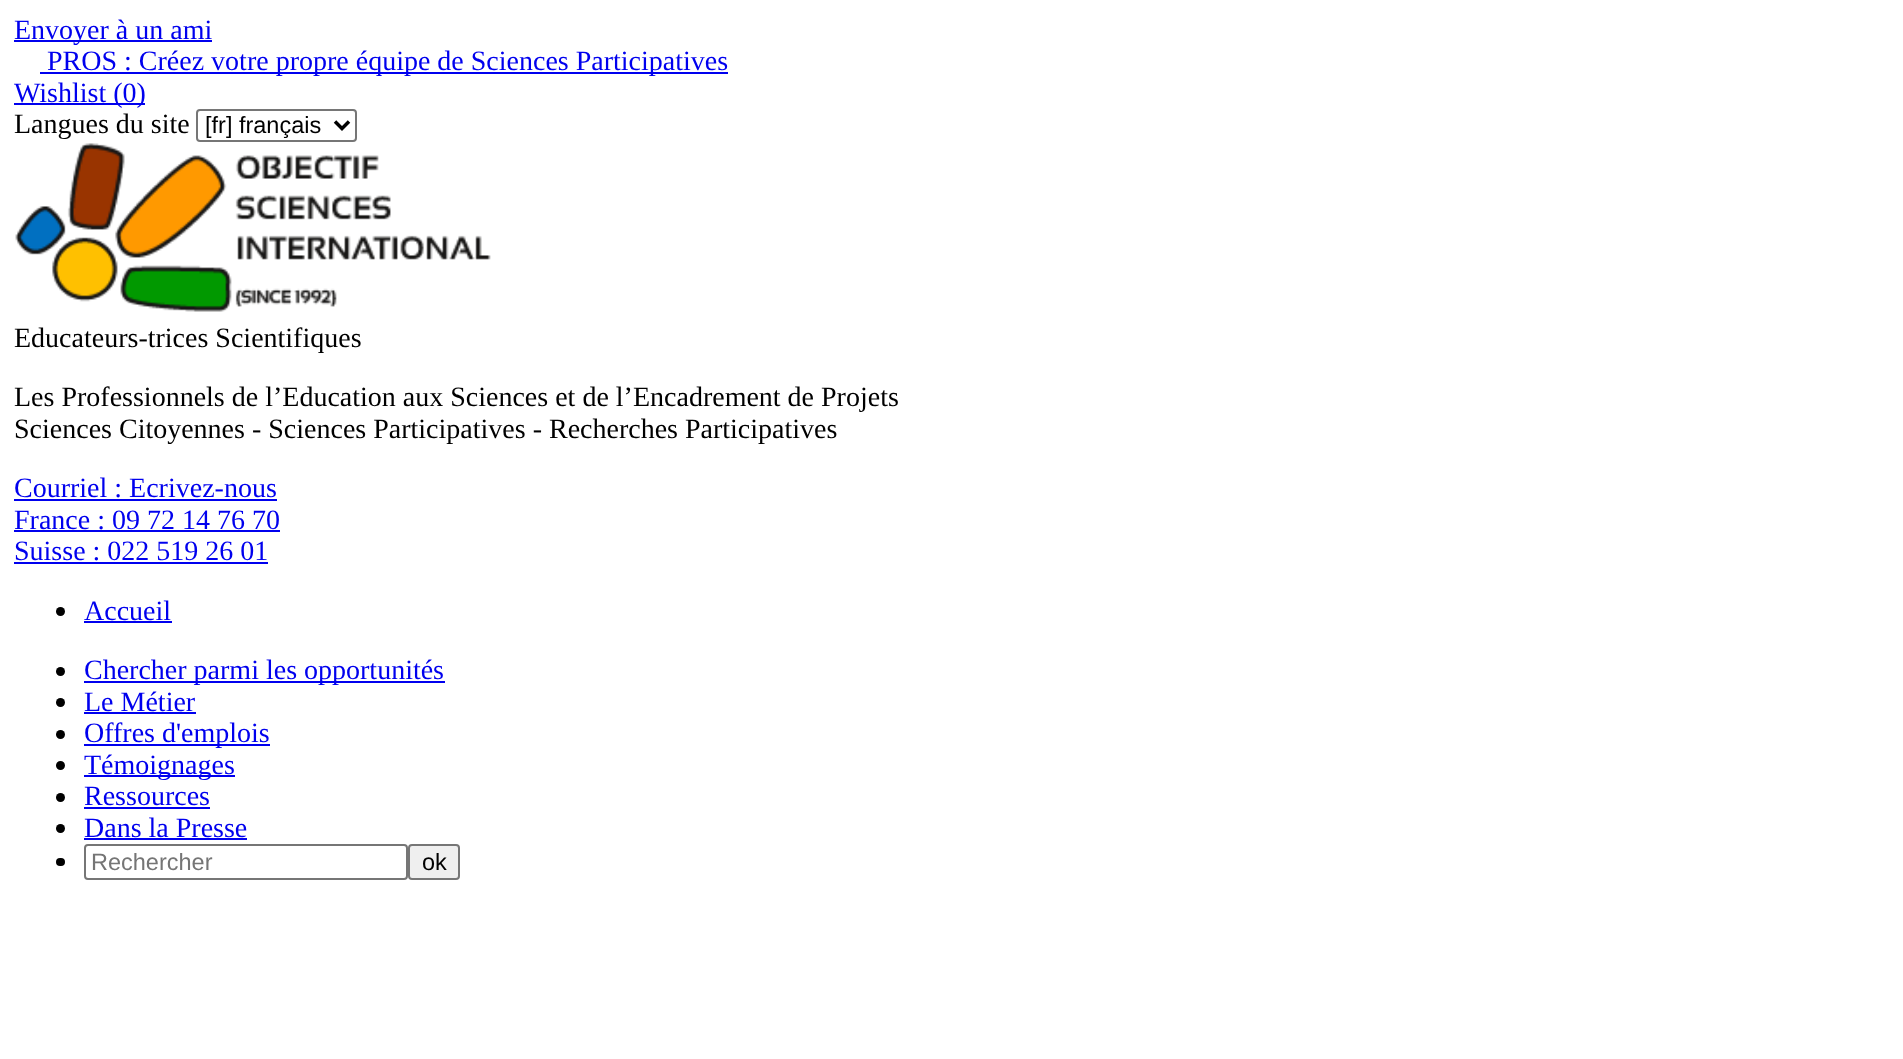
<svg xmlns="http://www.w3.org/2000/svg" width="1903" height="1059" viewBox="0 0 1903 1059">
  <rect width="100%" height="100%" fill="rgb(255,255,255)"/>
  <rect x="14" y="40" width="198" height="2" fill="rgb(0,0,238)"/>
  <text x="14" y="39" font-family="Liberation Serif" font-size="28" fill="rgb(0,0,238)">Envoyer à un ami</text>
  <rect x="40" y="72" width="688" height="2" fill="rgb(0,0,238)"/>
  <text x="47" y="70" font-family="Liberation Serif" font-size="28" fill="rgb(0,0,238)">PROS : Créez votre propre équipe de Sciences Participatives</text>
  <rect x="14" y="103" width="131" height="2" fill="rgb(0,0,238)"/>
  <text x="14" y="102" font-family="Liberation Serif" font-size="28" fill="rgb(0,0,238)">Wishlist (0)</text>
  <text x="14" y="133" font-family="Liberation Serif" font-size="28" fill="rgb(0,0,0)">Langues du site</text>
  <rect x="197" y="110" width="159" height="31" rx="3" fill="none" stroke="rgb(118,118,118)" stroke-width="2"/>
  <path d="M335 121.5L342 128.5L349 121.5" fill="none" stroke="rgb(0,0,0)" stroke-width="3.5"/>
  <text x="205" y="133" font-family="Liberation Sans" font-size="23.5" fill="rgb(0,0,0)">[fr] français</text>
  <image x="15" y="143" width="476" height="169" href="pic1.png"/>
  <g font-family="Liberation Serif" font-size="28" fill="rgb(0,0,0)">
    <text x="14" y="347">Educateurs-trices Scientifiques</text>
    <text>
      <tspan x="14" y="406">Les Professionnels de l’Education aux Sciences et de l’Encadrement de Projets</tspan>
      <tspan x="14" y="438">Sciences Citoyennes - Sciences Participatives - Recherches Participatives</tspan>
    </text>
  </g>
  <text x="14" y="497" font-family="Liberation Serif" font-size="28" fill="rgb(0,0,238)">Courriel : Ecrivez-nous</text>
  <rect x="14" y="499" width="263" height="2" fill="rgb(0,0,238)"/>
  <text x="14" y="529" font-family="Liberation Serif" font-size="28" fill="rgb(0,0,238)">France : 09 72 14 76 70</text>
  <rect x="14" y="530" width="266" height="2" fill="rgb(0,0,238)"/>
  <text x="14" y="560" font-family="Liberation Serif" font-size="28" fill="rgb(0,0,238)">Suisse : 022 519 26 01</text>
  <rect x="14" y="562" width="254" height="2" fill="rgb(0,0,238)"/>
  <circle cx="60.5" cy="611.5" r="4.5" fill="rgb(0,0,0)"/>
  <text x="84" y="620" font-family="Liberation Serif" font-size="28" fill="rgb(0,0,238)">Accueil</text>
  <rect x="84" y="621" width="88" height="2" fill="rgb(0,0,238)"/>
  <circle cx="60.5" cy="671.5" r="4.5" fill="rgb(0,0,0)"/>
  <rect x="84" y="681" width="361" height="2" fill="rgb(0,0,238)"/>
  <text x="84" y="679" font-family="Liberation Serif" font-size="28" fill="rgb(0,0,238)">Chercher parmi les opportunités</text>
  <circle cx="60.5" cy="702.5" r="4.5" fill="rgb(0,0,0)"/>
  <text x="84" y="711" font-family="Liberation Serif" font-size="28" fill="rgb(0,0,238)">Le Métier</text>
  <rect x="84" y="712" width="112" height="2" fill="rgb(0,0,238)"/>
  <circle cx="60.5" cy="734.5" r="4.5" fill="rgb(0,0,0)"/>
  <rect x="84" y="744" width="186" height="2" fill="rgb(0,0,238)"/>
  <text x="84" y="742" font-family="Liberation Serif" font-size="28" fill="rgb(0,0,238)">Offres d'emplois</text>
  <circle cx="60.5" cy="765.5" r="4.5" fill="rgb(0,0,0)"/>
  <rect x="84" y="775" width="151" height="2" fill="rgb(0,0,238)"/>
  <text x="84" y="774" font-family="Liberation Serif" font-size="28" fill="rgb(0,0,238)">Témoignages</text>
  <circle cx="60.5" cy="797.5" r="4.5" fill="rgb(0,0,0)"/>
  <text x="84" y="805" font-family="Liberation Serif" font-size="28" fill="rgb(0,0,238)">Ressources</text>
  <rect x="84" y="807" width="126" height="2" fill="rgb(0,0,238)"/>
  <circle cx="60.5" cy="828.5" r="4.5" fill="rgb(0,0,0)"/>
  <text x="84" y="837" font-family="Liberation Serif" font-size="28" fill="rgb(0,0,238)">Dans la Presse</text>
  <rect x="84" y="838" width="163" height="2" fill="rgb(0,0,238)"/>
  <rect x="56" y="858" width="9" height="8" rx="4" fill="rgb(0,0,0)"/>
  <rect x="85" y="845" width="322" height="34" rx="3" fill="none" stroke="rgb(118,118,118)" stroke-width="2"/>
  <text x="91" y="870" font-family="Liberation Sans" font-size="23.5" fill="rgb(117,117,117)">Rechercher</text>
  <rect x="409" y="845" width="50" height="34" rx="3" fill="rgb(239,239,239)" stroke="rgb(118,118,118)" stroke-width="2"/>
  <text x="422" y="870" font-family="Liberation Sans" font-size="23.5" fill="rgb(0,0,0)">ok</text>
</svg>
